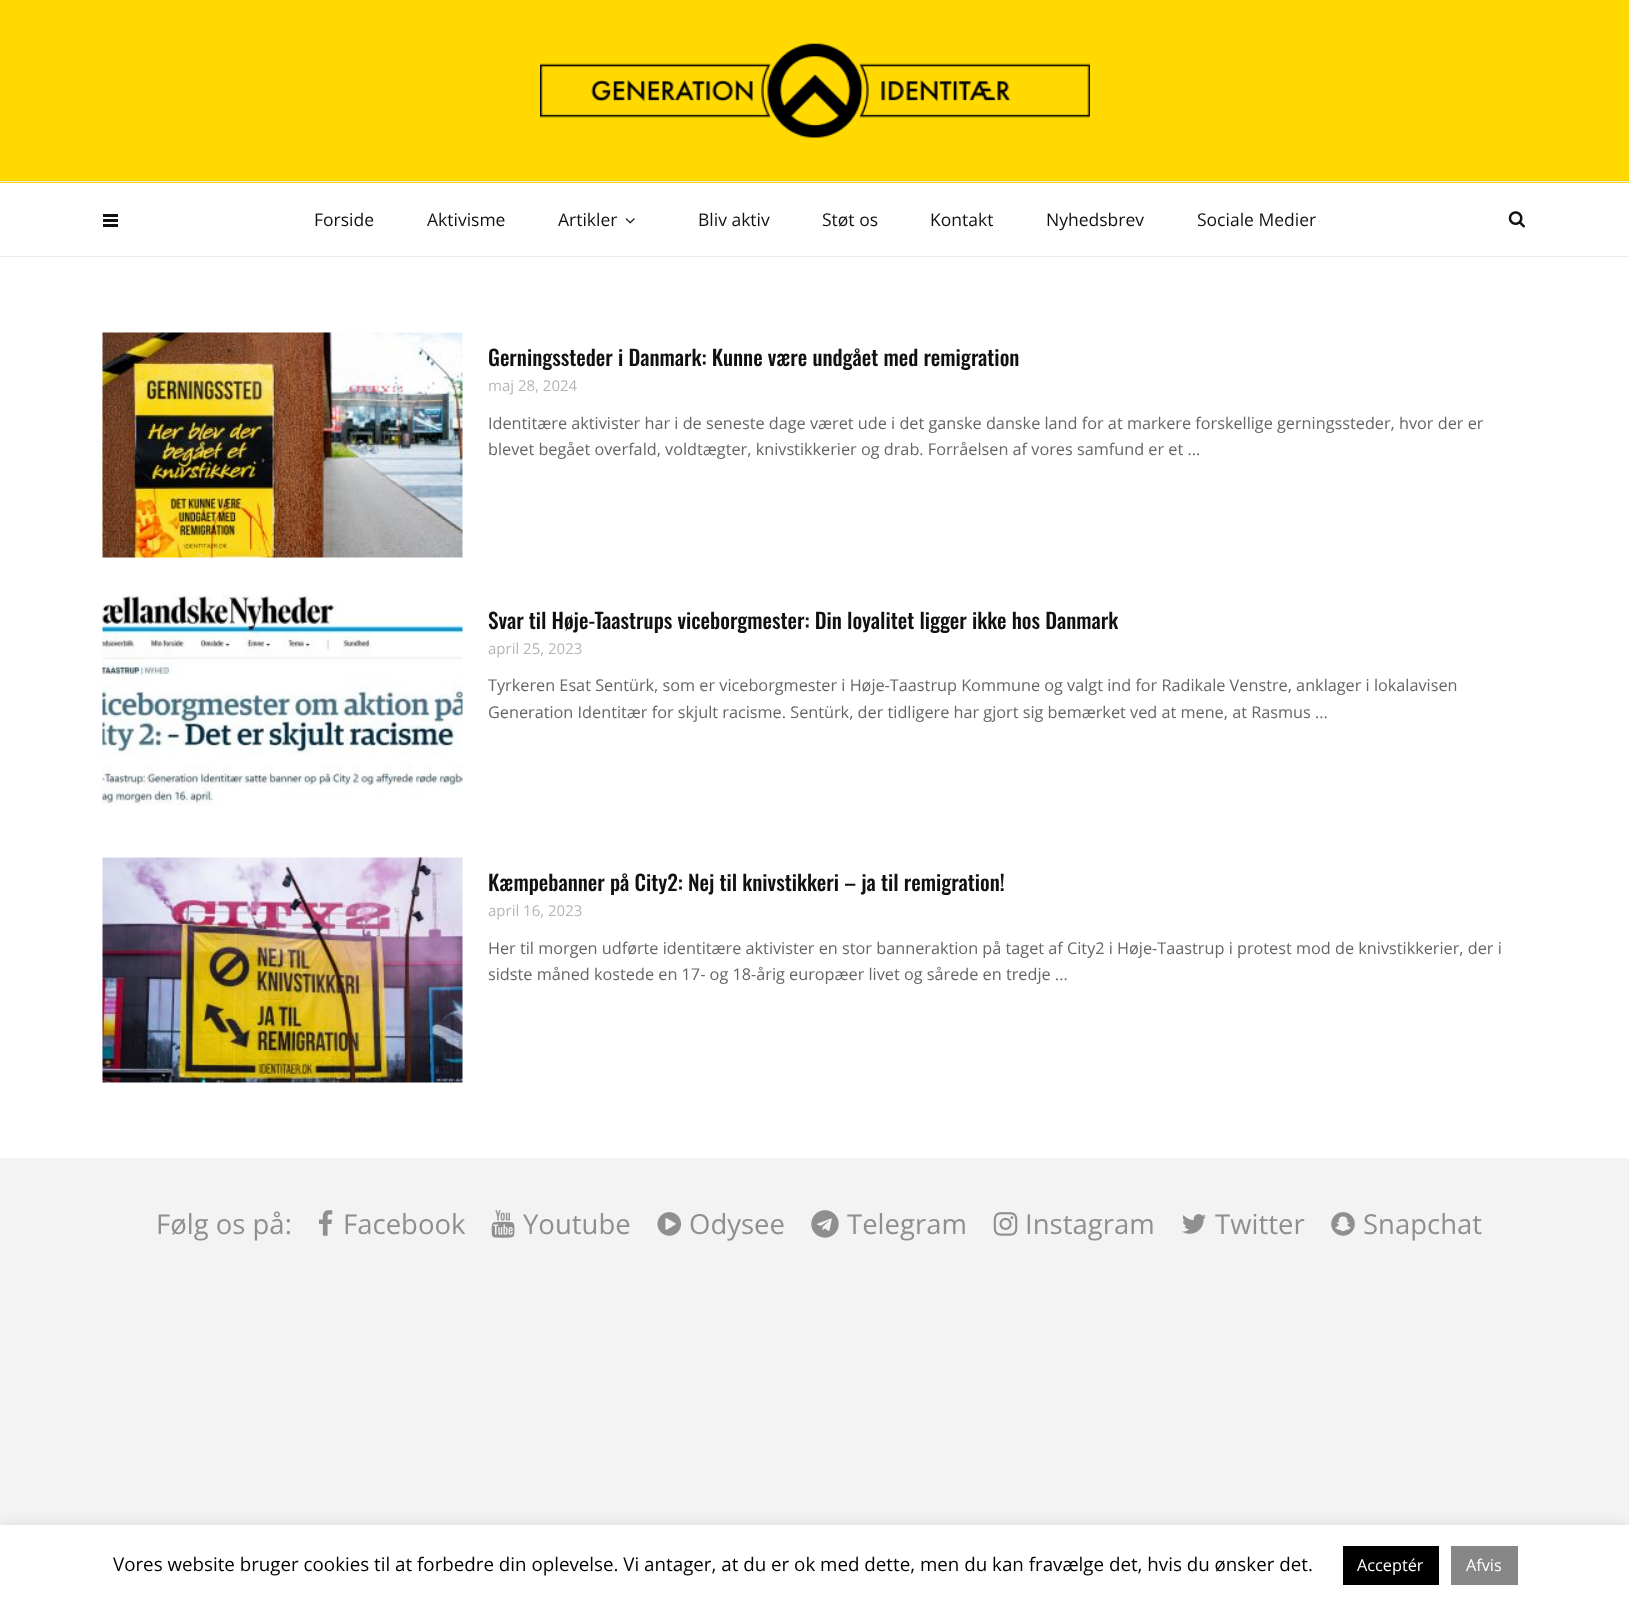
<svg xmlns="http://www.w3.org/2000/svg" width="1629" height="1606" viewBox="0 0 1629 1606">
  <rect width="100%" height="100%" fill="rgb(243,243,244)"/>
  <rect x="0" y="183" width="1629" height="975" fill="rgb(255,255,255)"/>
  <rect x="0" y="256" width="1629" height="1" fill="rgb(234,234,234)"/>
  <rect x="0" y="0" width="1629" height="183" fill="rgb(255,217,0)"/>
  <rect x="0" y="181" width="1629" height="1" fill="rgb(234,234,234)"/>
  <image x="540" y="43" width="550" height="95" href="pic1.png"/>
  <rect x="103" y="214" width="15" height="3" fill="rgb(17,17,17)"/>
  <rect x="103" y="219" width="15" height="3" fill="rgb(17,17,17)"/>
  <rect x="103" y="224" width="15" height="3" fill="rgb(17,17,17)"/>
  <image x="1508" y="211" width="17" height="17" href="pic2.png"/>
  <g font-family="Open Sans" font-size="17.5" fill="rgb(17,17,17)">
    <text x="314" y="226">Forside</text>
    <text x="427" y="226">Aktivisme</text>
    <text x="558" y="226">Artikler</text>
  </g>
  <image x="625" y="218" width="10" height="6" href="pic3.png"/>
  <g font-family="Open Sans" font-size="17.5" fill="rgb(17,17,17)">
    <text x="698" y="226">Bliv aktiv</text>
    <text x="822" y="226">Støt os</text>
    <text x="930" y="226">Kontakt</text>
    <text x="1046" y="226">Nyhedsbrev</text>
    <text x="1197" y="226">Sociale Medier</text>
  </g>
  <image x="102" y="332" width="361" height="226" href="pic4.png"/>
  <text x="488" y="366" font-family="Oswald" font-size="21.25" font-weight="500" fill="rgb(17,17,17)">Gerningssteder i Danmark: Kunne være undgået med remigration</text>
  <text x="488" y="391" font-family="Open Sans" font-size="15" fill="rgb(181,181,181)">maj 28, 2024</text>
  <g font-family="Open Sans" font-size="16.25" fill="rgb(102,102,102)">
    <text>
      <tspan x="488" y="429">Identitære aktivister har i de seneste dage været ude i det ganske danske land for at markere forskellige gerningssteder, hvor der er</tspan>
      <tspan x="488" y="455">blevet begået overfald, voldtægter, knivstikkerier og drab. Forråelsen af vores samfund er et ...</tspan>
    </text>
  </g>
  <image x="102" y="595" width="361" height="211" href="pic5.png"/>
  <text x="488" y="629" font-family="Oswald" font-size="21.25" font-weight="500" fill="rgb(17,17,17)">Svar til Høje-Taastrups viceborgmester: Din loyalitet ligger ikke hos Danmark</text>
  <text x="488" y="654" font-family="Open Sans" font-size="15" fill="rgb(181,181,181)">april 25, 2023</text>
  <g font-family="Open Sans" font-size="16.25" fill="rgb(102,102,102)">
    <text>
      <tspan x="488" y="691">Tyrkeren Esat Sentürk, som er viceborgmester i Høje-Taastrup Kommune og valgt ind for Radikale Venstre, anklager i lokalavisen</tspan>
      <tspan x="488" y="718">Generation Identitær for skjult racisme. Sentürk, der tidligere har gjort sig bemærket ved at mene, at Rasmus ...</tspan>
    </text>
  </g>
  <image x="102" y="857" width="361" height="226" href="pic6.png"/>
  <text x="488" y="891" font-family="Oswald" font-size="21.25" font-weight="500" fill="rgb(17,17,17)">Kæmpebanner på City2: Nej til knivstikkeri – ja til remigration!</text>
  <text x="488" y="916" font-family="Open Sans" font-size="15" fill="rgb(181,181,181)">april 16, 2023</text>
  <g font-family="Open Sans" font-size="16.25" fill="rgb(102,102,102)">
    <text>
      <tspan x="488" y="954">Her til morgen udførte identitære aktivister en stor banneraktion på taget af City2 i Høje-Taastrup i protest mod de knivstikkerier, der i</tspan>
      <tspan x="488" y="980">sidste måned kostede en 17- og 18-årig europæer livet og sårede en tredje ...</tspan>
    </text>
  </g>
  <text x="156" y="1234" font-family="Open Sans" font-size="27.5" fill="rgb(144,142,142)">Følg os på:</text>
  <image x="318" y="1210" width="15" height="26" href="pic7.png"/>
  <text x="343" y="1234" font-family="Open Sans" font-size="27.5" fill="rgb(144,142,142)">Facebook</text>
  <image x="491" y="1210" width="24" height="28" href="pic8.png"/>
  <text x="523" y="1234" font-family="Open Sans" font-size="27.5" fill="rgb(144,142,142)">Youtube</text>
  <image x="657" y="1212" width="25" height="24" href="pic9.png"/>
  <text x="689" y="1234" font-family="Open Sans" font-size="27.5" fill="rgb(144,142,142)">Odysee</text>
  <image x="811" y="1210" width="28" height="28" href="pic10.png"/>
  <text x="847" y="1234" font-family="Open Sans" font-size="27.5" fill="rgb(144,142,142)">Telegram</text>
  <image x="993" y="1212" width="25" height="24" href="pic11.png"/>
  <text x="1025" y="1234" font-family="Open Sans" font-size="27.5" fill="rgb(144,142,142)">Instagram</text>
  <image x="1182" y="1214" width="24" height="20" href="pic12.png"/>
  <text x="1215" y="1234" font-family="Open Sans" font-size="27.5" fill="rgb(144,142,142)">Twitter</text>
  <image x="1331" y="1212" width="24" height="24" href="pic13.png"/>
  <text x="1363" y="1234" font-family="Open Sans" font-size="27.5" fill="rgb(144,142,142)">Snapchat</text>
  <rect x="0" y="1524" width="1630" height="81" fill="rgba(172,171,171,0.3)" filter="blur(6px)"/>
  <rect x="0" y="1525" width="1629" height="81" fill="rgb(255,255,255)"/>
  <text x="113" y="1571" font-family="Open Sans" font-size="18.75" fill="rgb(0,0,0)">Vores website bruger cookies til at forbedre din oplevelse. Vi antager, at du er ok med dette, men du kan fravælge det, hvis du ønsker det.</text>
  <rect x="1343" y="1546" width="96" height="39" fill="rgb(0,0,0)"/>
  <text x="1357" y="1571" font-family="Open Sans" font-size="16.25" fill="rgb(255,255,255)">Acceptér</text>
  <rect x="1451" y="1546" width="67" height="39" fill="rgb(135,135,135)"/>
  <text x="1466" y="1571" font-family="Open Sans" font-size="16.25" fill="rgb(255,255,255)">Afvis</text>
</svg>
